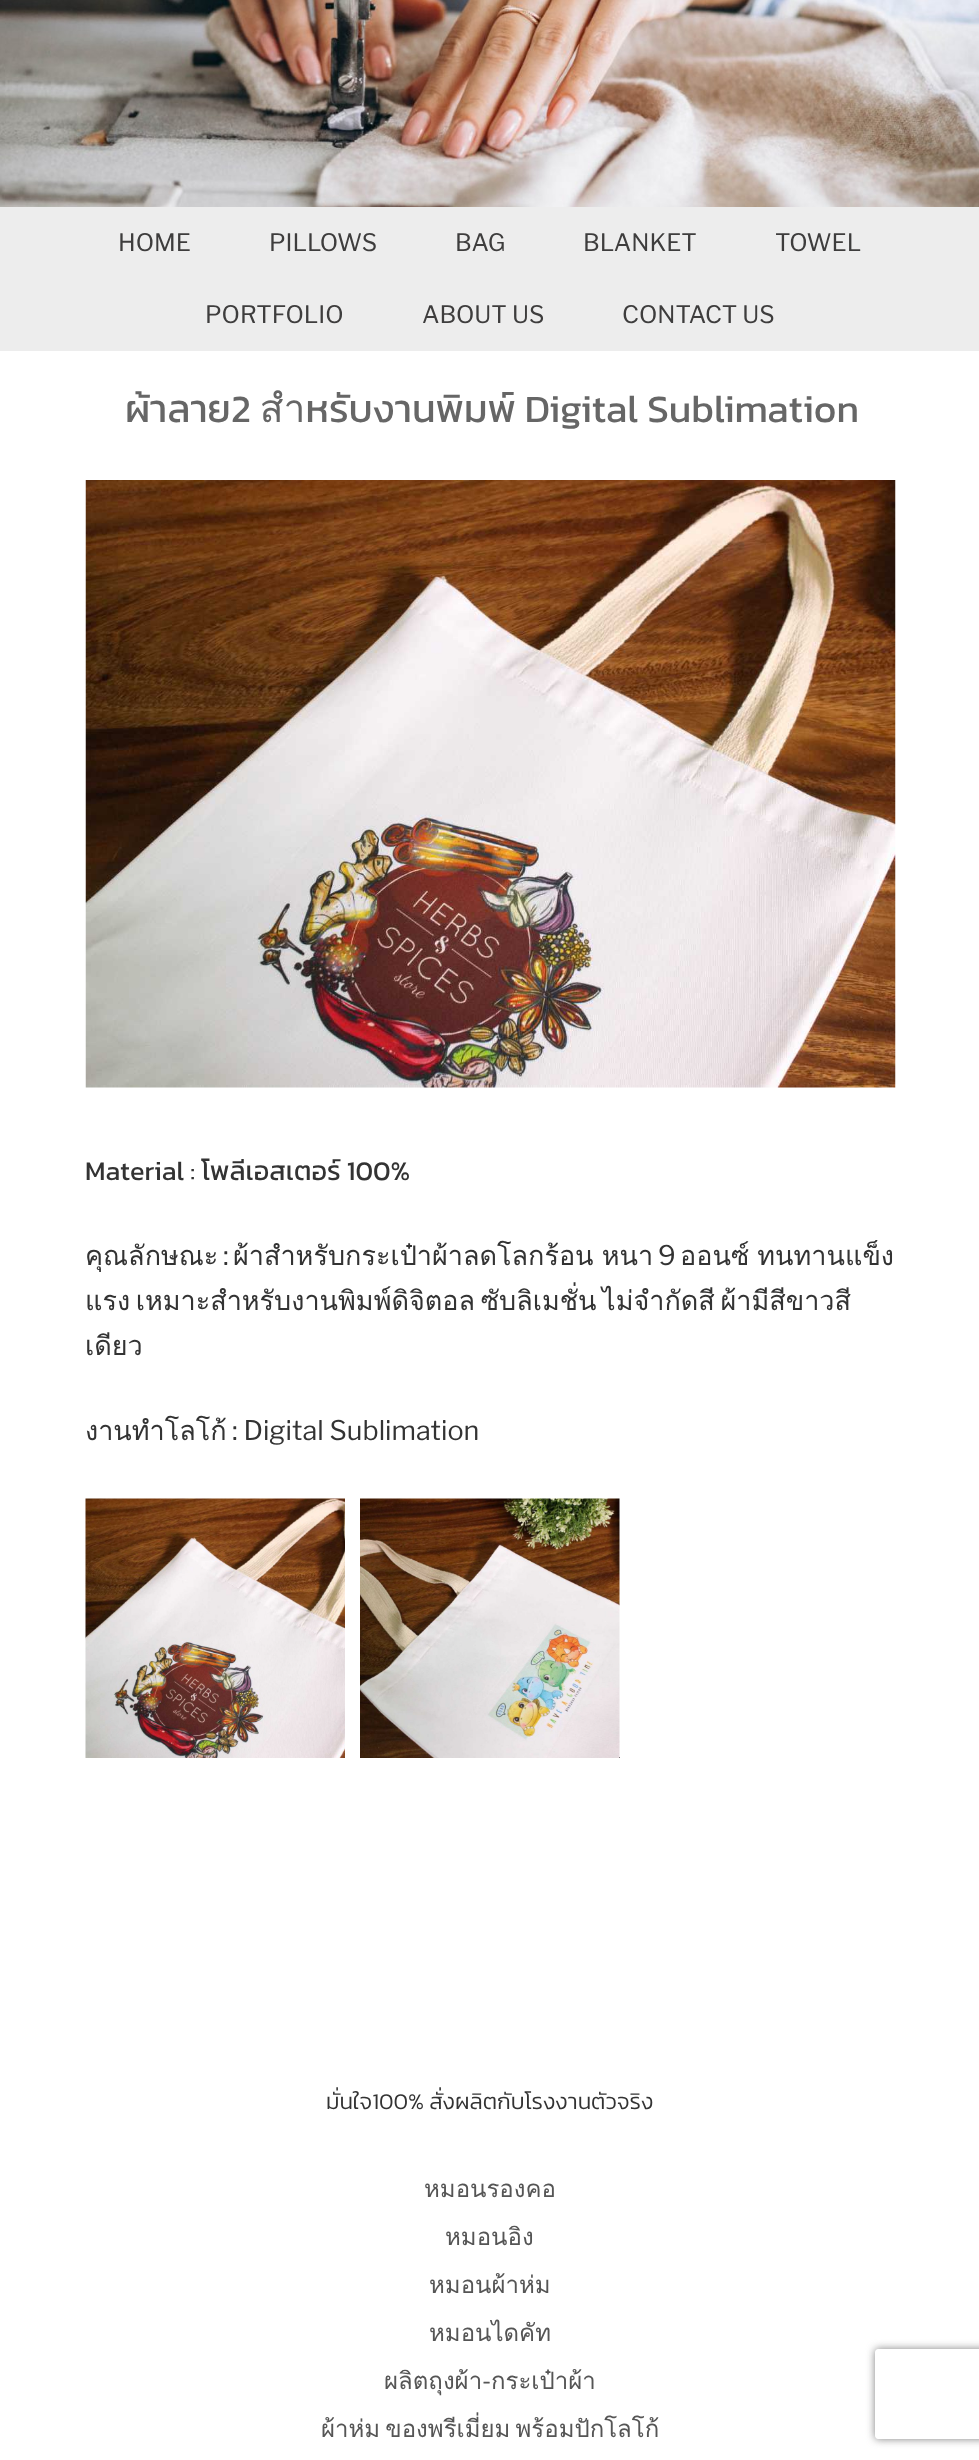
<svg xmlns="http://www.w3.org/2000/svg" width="979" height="2460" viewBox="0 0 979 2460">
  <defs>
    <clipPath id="clip1"><path d="M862 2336H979V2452H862ZM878 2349H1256C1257.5 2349 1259 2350.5 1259 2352V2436C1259 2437.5 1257.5 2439 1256 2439H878C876.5 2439 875 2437.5 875 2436V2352C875 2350.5 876.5 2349 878 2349Z" clip-rule="evenodd"/></clipPath>
  </defs>
  <rect width="100%" height="100%" fill="rgb(255,255,255)"/>
  <image x="0" y="0" width="979" height="207" href="pic1.png"/>
  <rect x="0" y="207" width="979" height="144" fill="rgb(237,237,237)"/>
  <g font-family="Libre Franklin" font-size="24" font-weight="100" fill="rgb(62,61,61)">
    <text x="118" y="251">HOME</text>
    <text x="269" y="251">PILLOWS</text>
    <text x="455" y="251">BAG</text>
    <text x="583" y="251">BLANKET</text>
    <text x="775" y="251">TOWEL</text>
    <text x="205" y="323">PORTFOLIO</text>
    <text x="422" y="323">ABOUT US</text>
    <text x="622" y="323">CONTACT US</text>
  </g>
  <text x="125" y="422" font-family="Kanit" font-size="39" fill="rgb(102,102,102)">ผ้าลาย2 สำหรับงานพิมพ์ Digital Sublimation</text>
  <image x="85" y="480" width="811" height="608" href="pic2.png"/>
  <text x="85" y="1180" font-family="Kanit" font-size="27" fill="rgb(51,51,51)">Material : โพลีเอสเตอร์ 100%</text>
  <text x="85" y="1265" font-family="Loma" font-size="27" fill="rgb(51,51,51)">คุณลักษณะ</text>
  <text x="223" y="1265" font-family="Libre Franklin" font-size="27" font-weight="100" fill="rgb(51,51,51)">:</text>
  <text x="233" y="1265" word-spacing="-1" font-family="Loma" font-size="27" fill="rgb(51,51,51)">ผ้าสำหรับกระเป๋าผ้าลดโลกร้อน หนา</text>
  <text x="658" y="1265" font-family="Libre Franklin" font-size="27" font-weight="100" fill="rgb(51,51,51)">9</text>
  <g font-family="Loma" font-size="27" fill="rgb(51,51,51)">
    <text x="680" y="1265" word-spacing="-1">ออนซ์ ทนทานแข็ง</text>
    <text>
      <tspan x="85" y="1310" word-spacing="-3.5">แรง เหมาะสำหรับงานพิมพ์ดิจิตอล ซับลิเมชั่น ไม่จำกัดสี ผ้ามีสีขาวสี</tspan>
      <tspan x="85" y="1355">เดียว</tspan>
    </text>
    <text x="85" y="1440">งานทำโลโก้</text>
  </g>
  <text x="232" y="1440" font-family="Libre Franklin" font-size="27" font-weight="100" fill="rgb(51,51,51)">: Digital Sublimation</text>
  <image x="85" y="1498" width="260" height="260" href="pic3.png"/>
  <rect x="619" y="1757" width="1" height="1" fill="rgb(15,15,15)"/>
  <image x="360" y="1498" width="260" height="260" href="pic4.png"/>
  <text x="326" y="2109" font-family="Kanit" font-size="22.5" font-weight="300" fill="rgb(51,51,51)">มั่นใจ100% สั่งผลิตกับโรงงานตัวจริง</text>
  <g font-family="Loma" font-size="24" fill="rgb(85,85,85)">
    <text x="424" y="2197">หมอนรองคอ</text>
    <text x="445" y="2245">หมอนอิง</text>
    <text x="429" y="2293">หมอนผ้าห่ม</text>
    <text x="429" y="2341">หมอนไดคัท</text>
    <text x="384" y="2389">ผลิตถุงผ้า</text>
  </g>
  <text x="482" y="2389" font-family="Libre Franklin" font-size="24" font-weight="100" fill="rgb(85,85,85)">-</text>
  <g font-family="Loma" font-size="24" fill="rgb(85,85,85)">
    <text x="491" y="2389">กระเป๋าผ้า</text>
    <text x="321" y="2437" word-spacing="-3">ผ้าห่ม ของพรีเมี่ยม พร้อมปักโลโก้</text>
  </g>
  <g clip-path="url(#clip1)">
    <rect x="875" y="2349" width="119" height="90" rx="3" fill="rgb(128,128,128)" filter="blur(4px)"/>
  </g>
</svg>
